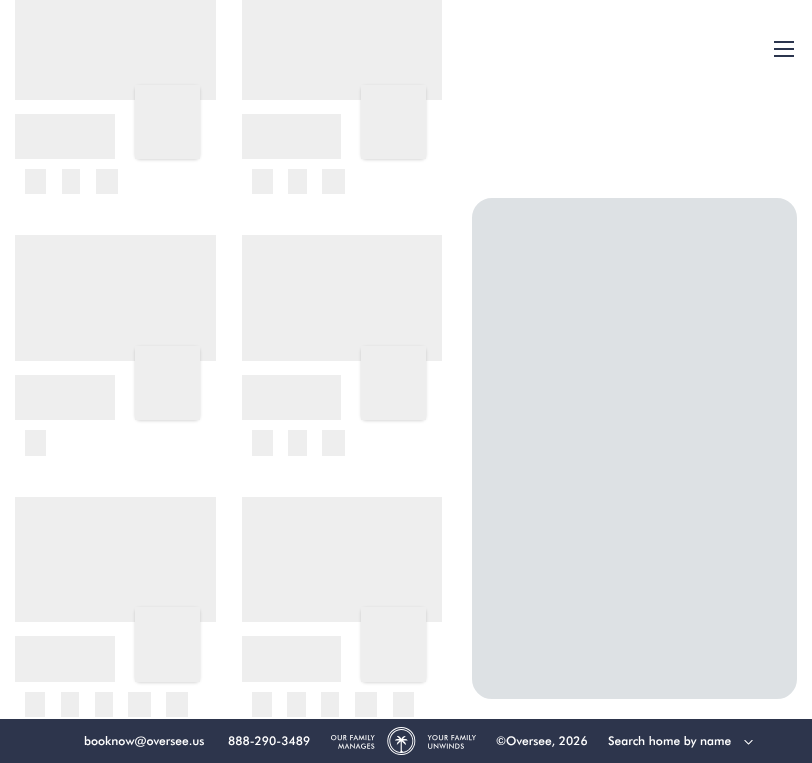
<svg xmlns="http://www.w3.org/2000/svg" width="812" height="763" viewBox="0 0 812 763">
  <rect width="100%" height="100%" fill="rgb(255,255,255)"/>
  <rect x="15" y="0" width="201" height="100" fill="rgb(238,238,238)"/>
  <rect x="15" y="114" width="100" height="45" fill="rgb(238,238,238)"/>
  <rect x="135" y="86" width="65" height="74" rx="5" fill="rgba(0,0,0,0.16)" filter="blur(1.5px)"/>
  <rect x="135" y="85" width="65" height="74" fill="rgb(238,238,238)"/>
  <rect x="25" y="169" width="21" height="25" fill="rgb(238,238,238)"/>
  <rect x="62" y="169" width="18" height="25" fill="rgb(238,238,238)"/>
  <rect x="96" y="169" width="22" height="25" fill="rgb(238,238,238)"/>
  <rect x="242" y="0" width="200" height="100" fill="rgb(238,238,238)"/>
  <rect x="242" y="114" width="99" height="45" fill="rgb(238,238,238)"/>
  <rect x="361" y="86" width="65" height="74" rx="5" fill="rgba(0,0,0,0.16)" filter="blur(1.5px)"/>
  <rect x="361" y="85" width="65" height="74" fill="rgb(238,238,238)"/>
  <rect x="252" y="169" width="21" height="25" fill="rgb(238,238,238)"/>
  <rect x="288" y="169" width="19" height="25" fill="rgb(238,238,238)"/>
  <rect x="322" y="169" width="23" height="25" fill="rgb(238,238,238)"/>
  <rect x="15" y="235" width="201" height="126" fill="rgb(238,238,238)"/>
  <rect x="15" y="375" width="100" height="45" fill="rgb(238,238,238)"/>
  <rect x="135" y="347" width="65" height="74" rx="5" fill="rgba(0,0,0,0.16)" filter="blur(1.5px)"/>
  <rect x="135" y="346" width="65" height="74" fill="rgb(238,238,238)"/>
  <rect x="25" y="430" width="21" height="26" fill="rgb(238,238,238)"/>
  <rect x="242" y="235" width="200" height="126" fill="rgb(238,238,238)"/>
  <rect x="242" y="375" width="99" height="45" fill="rgb(238,238,238)"/>
  <rect x="361" y="347" width="65" height="74" rx="5" fill="rgba(0,0,0,0.16)" filter="blur(1.5px)"/>
  <rect x="361" y="346" width="65" height="74" fill="rgb(238,238,238)"/>
  <rect x="252" y="430" width="21" height="26" fill="rgb(238,238,238)"/>
  <rect x="288" y="430" width="19" height="26" fill="rgb(238,238,238)"/>
  <rect x="322" y="430" width="23" height="26" fill="rgb(238,238,238)"/>
  <rect x="15" y="497" width="201" height="125" fill="rgb(238,238,238)"/>
  <rect x="15" y="636" width="100" height="46" fill="rgb(238,238,238)"/>
  <rect x="135" y="608" width="65" height="75" rx="5" fill="rgba(0,0,0,0.16)" filter="blur(1.5px)"/>
  <rect x="135" y="607" width="65" height="75" fill="rgb(238,238,238)"/>
  <rect x="25" y="692" width="20" height="25" fill="rgb(238,238,238)"/>
  <rect x="61" y="692" width="18" height="25" fill="rgb(238,238,238)"/>
  <rect x="95" y="692" width="18" height="25" fill="rgb(238,238,238)"/>
  <rect x="128" y="692" width="23" height="25" fill="rgb(238,238,238)"/>
  <rect x="166" y="692" width="22" height="25" fill="rgb(238,238,238)"/>
  <rect x="242" y="497" width="200" height="125" fill="rgb(238,238,238)"/>
  <rect x="242" y="636" width="99" height="46" fill="rgb(238,238,238)"/>
  <rect x="361" y="608" width="65" height="75" rx="5" fill="rgba(0,0,0,0.16)" filter="blur(1.5px)"/>
  <rect x="361" y="607" width="65" height="75" fill="rgb(238,238,238)"/>
  <rect x="252" y="692" width="20" height="25" fill="rgb(238,238,238)"/>
  <rect x="287" y="692" width="19" height="25" fill="rgb(238,238,238)"/>
  <rect x="321" y="692" width="18" height="25" fill="rgb(238,238,238)"/>
  <rect x="355" y="692" width="22" height="25" fill="rgb(238,238,238)"/>
  <rect x="393" y="692" width="21" height="25" fill="rgb(238,238,238)"/>
  <rect x="467" y="193" width="335" height="511" rx="25" fill="rgb(221,225,228)" stroke="rgb(255,255,255)" stroke-width="10"/>
  <rect x="774" y="55" width="20" height="2" fill="rgb(43,53,78)"/>
  <rect x="774" y="41" width="20" height="2" fill="rgb(43,53,78)"/>
  <rect x="774" y="48" width="20" height="2" fill="rgb(43,53,78)"/>
  <rect x="0" y="719" width="812" height="44" fill="rgb(45,53,76)"/>
  <g font-family="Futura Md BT" font-size="12" font-weight="500" fill="rgb(255,255,255)">
    <text x="84" y="745">booknow@oversee.us</text>
    <text x="228" y="745">888-290-3489</text>
  </g>
  <image x="331" y="727" width="145" height="28" href="pic1.png"/>
  <g font-family="Futura Md BT" font-size="12" font-weight="500" fill="rgb(255,255,255)">
    <text x="496" y="745">©Oversee, 2026</text>
    <text x="608" y="745">Search home by name</text>
  </g>
  <image x="744" y="740" width="9" height="5" href="pic2.png"/>
</svg>
